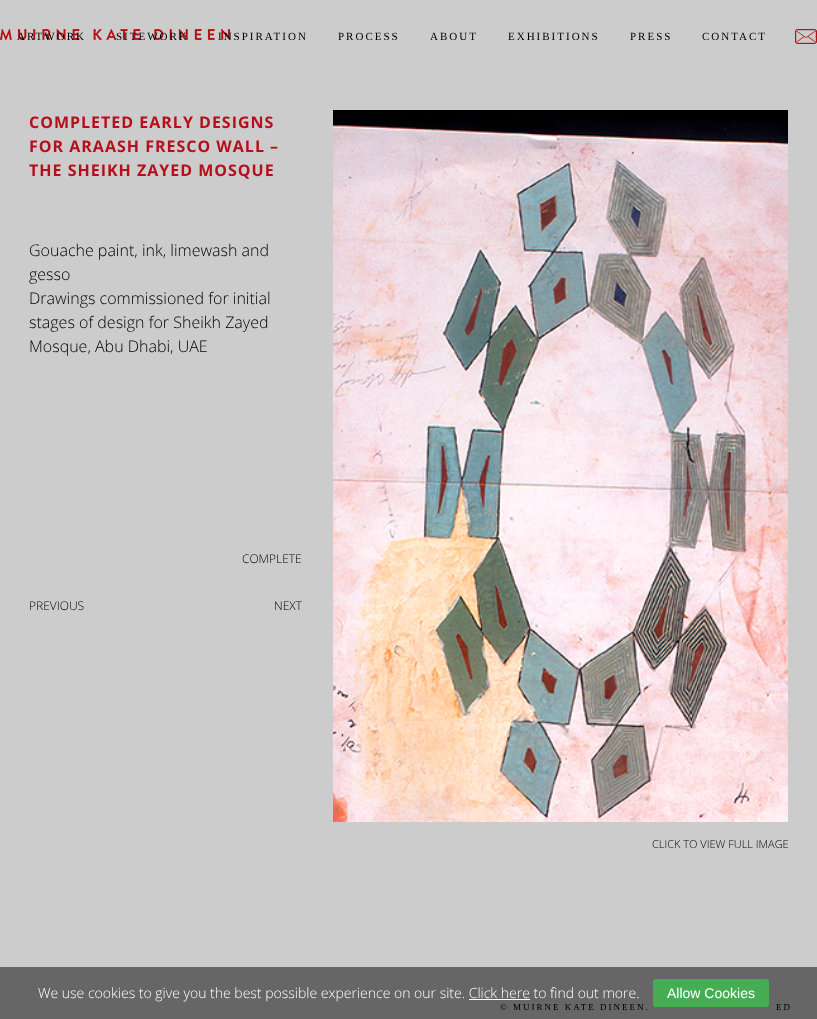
<svg xmlns="http://www.w3.org/2000/svg" width="817" height="1019" viewBox="0 0 817 1019">
  <rect width="100%" height="100%" fill="rgb(204,204,204)"/>
  <rect x="0" y="967" width="817" height="52" fill="rgb(102,102,102)"/>
  <image x="0" y="29" width="230" height="11" href="pic1.png"/>
  <g font-family="Liberation Serif" font-size="11" letter-spacing="2" fill="rgb(0,0,0)">
    <text x="17" y="40">ARTWORK</text>
    <text x="116" y="40">SITEWORK</text>
    <text x="218" y="40">INSPIRATION</text>
    <text x="338" y="40">PROCESS</text>
    <text x="430" y="40">ABOUT</text>
    <text x="508" y="40">EXHIBITIONS</text>
    <text x="630" y="40">PRESS</text>
    <text x="702" y="40">CONTACT</text>
  </g>
  <image x="795" y="29" width="22" height="15" href="pic2.png"/>
  <g font-family="Open Sans" font-size="16" font-weight="bold" letter-spacing="1" fill="rgb(181,15,25)">
    <text>
      <tspan x="29" y="128">COMPLETED EARLY DESIGNS</tspan>
      <tspan x="29" y="152">FOR ARAASH FRESCO WALL –</tspan>
      <tspan x="29" y="176">THE SHEIKH ZAYED MOSQUE</tspan>
    </text>
  </g>
  <g font-family="Open Sans" font-size="16" font-weight="300" fill="rgb(0,0,0)">
    <text>
      <tspan x="29" y="256">Gouache paint, ink, limewash and</tspan>
      <tspan x="29" y="280">gesso</tspan>
      <tspan x="29" y="304">Drawings commissioned for initial</tspan>
      <tspan x="29" y="328">stages of design for Sheikh Zayed</tspan>
      <tspan x="29" y="352">Mosque, Abu Dhabi, UAE</tspan>
    </text>
  </g>
  <g font-family="Open Sans" font-size="12" font-weight="300" fill="rgb(0,0,0)">
    <text x="242" y="563">COMPLETE</text>
    <text x="29" y="610">PREVIOUS</text>
    <text x="274" y="610">NEXT</text>
  </g>
  <image x="333" y="110" width="455" height="712" href="pic3.png"/>
  <text x="652" y="848" font-family="Open Sans" font-size="11" font-weight="300" fill="rgb(0,0,0)">CLICK TO VIEW FULL IMAGE</text>
  <text x="38" y="998" font-family="Open Sans" font-size="14" font-weight="300" fill="rgb(255,255,255)">We use cookies to give you the best possible experience on our site. Click here to find out more.</text>
  <rect x="653" y="979" width="116" height="28" rx="3" fill="rgb(69,174,82)"/>
  <text x="667" y="998" font-family="Liberation Sans" font-size="14" fill="rgb(255,255,255)">Allow Cookies</text>
  <rect x="469" y="999" width="61" height="1" fill="rgb(255,255,255)"/>
  <g font-family="Liberation Serif" font-size="9" letter-spacing="2" fill="rgb(0,0,0)">
    <text x="500" y="1010">© MUIRNE KATE DINEEN.</text>
    <text x="776" y="1010">ED</text>
  </g>
</svg>
